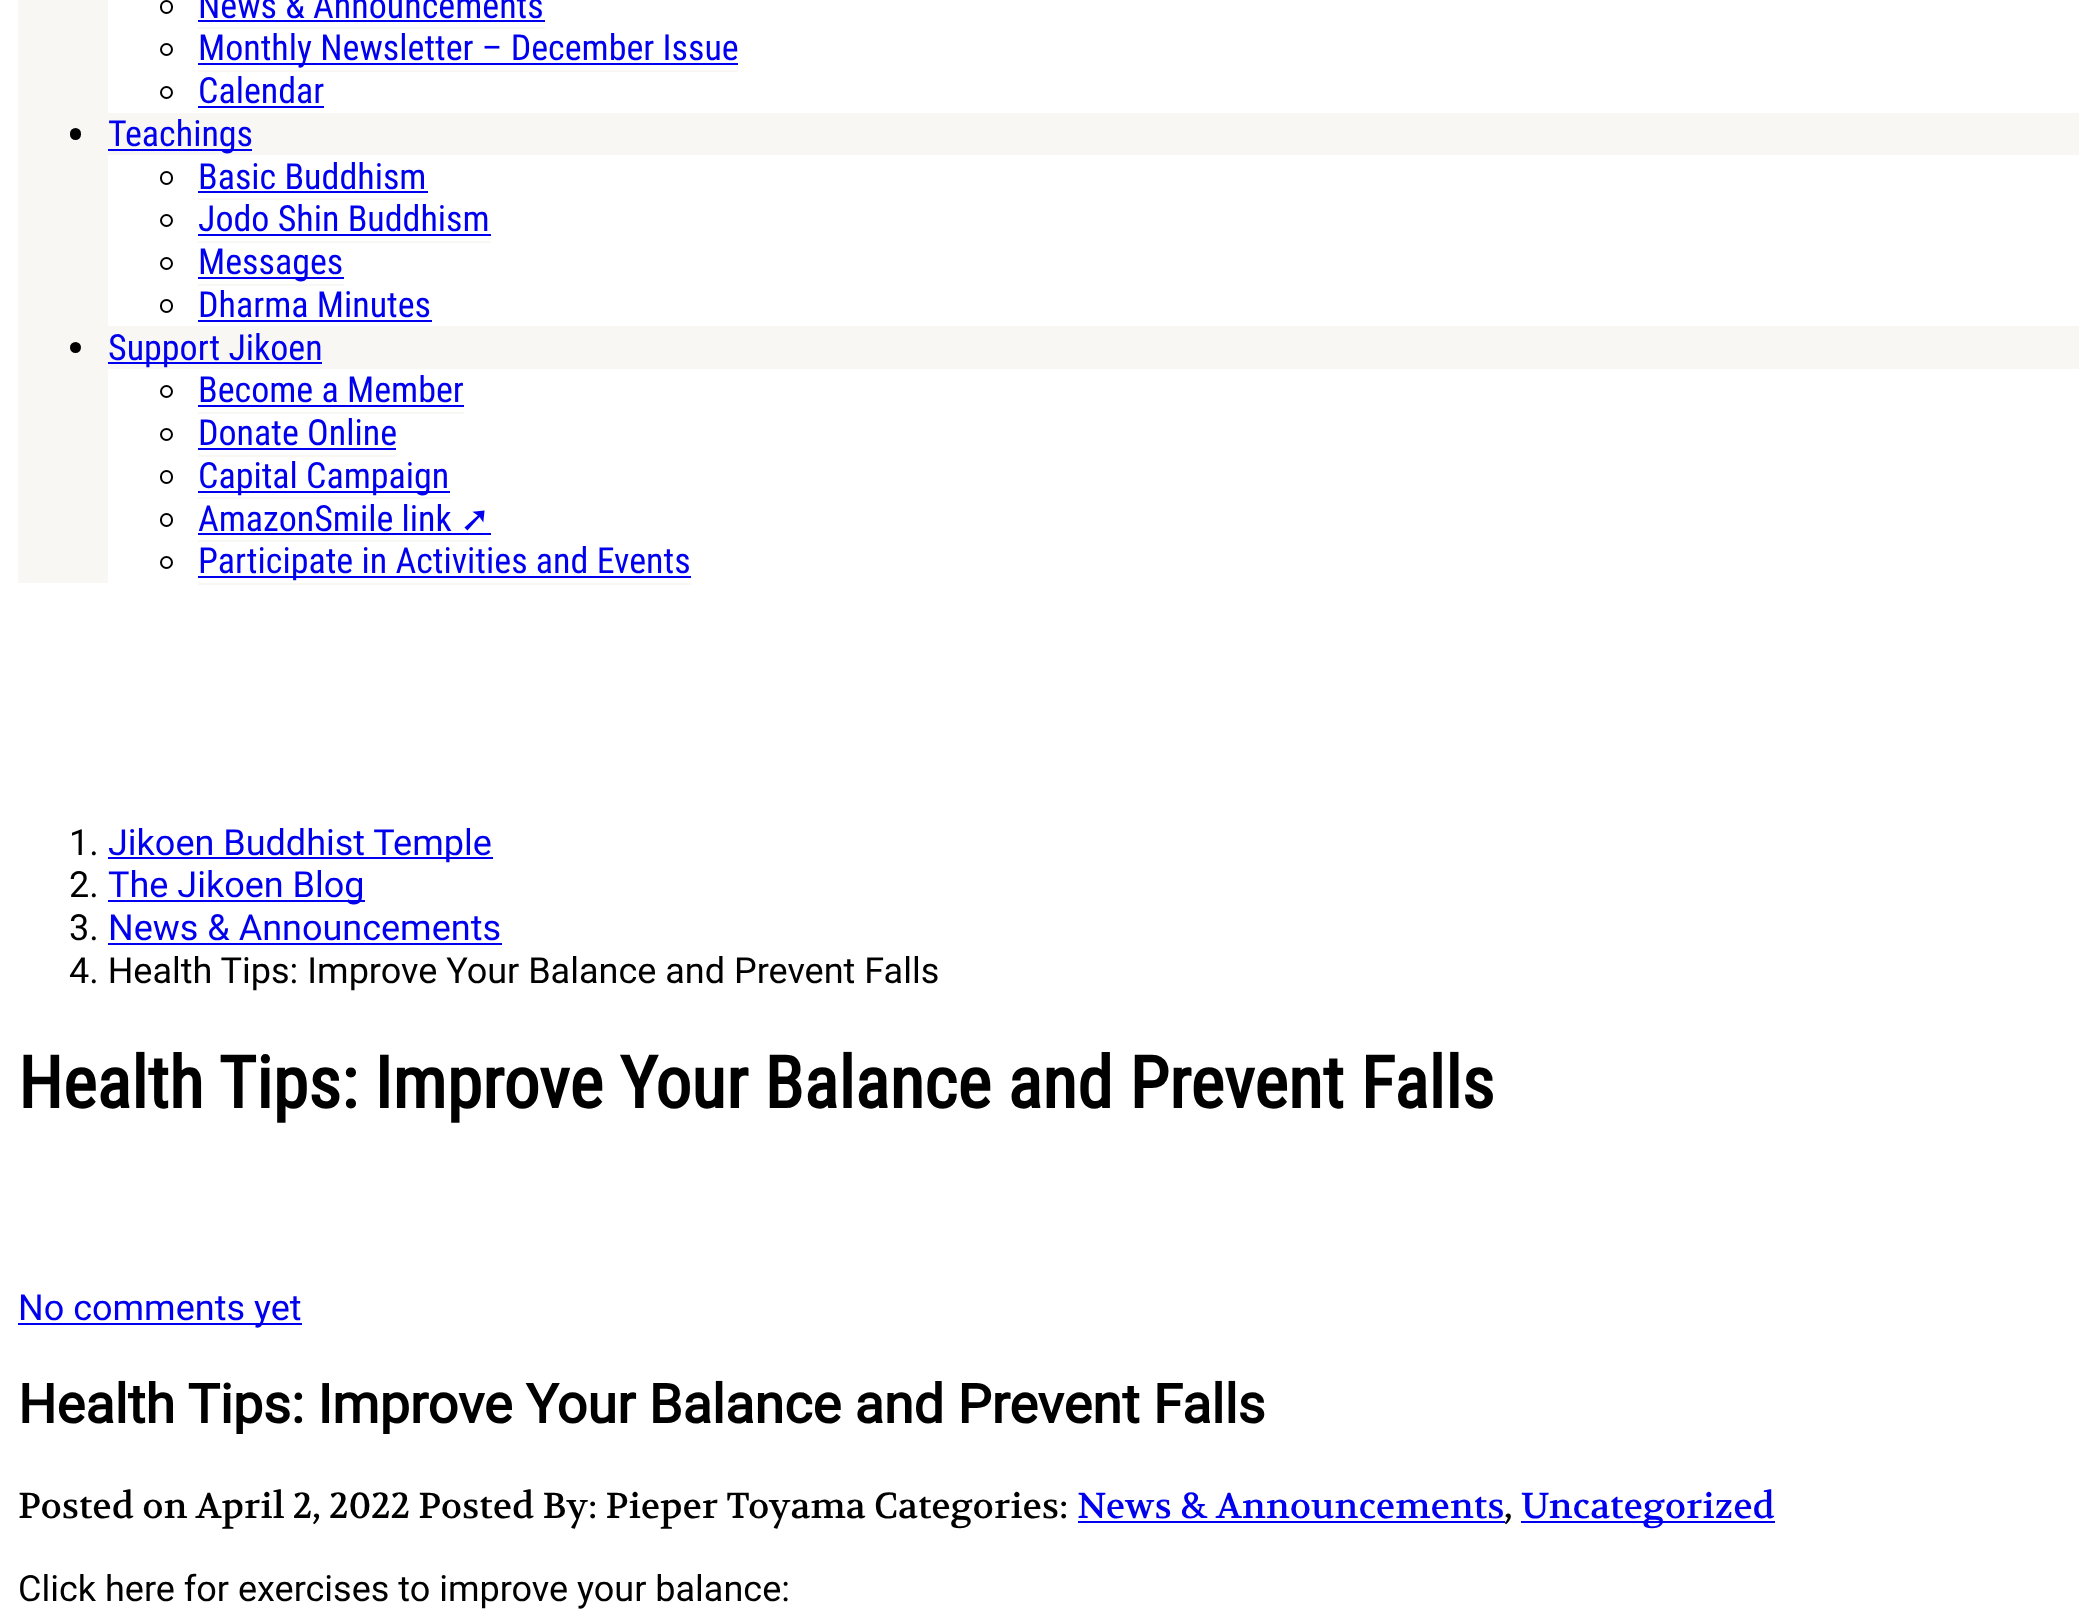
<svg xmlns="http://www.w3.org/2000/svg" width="2095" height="1621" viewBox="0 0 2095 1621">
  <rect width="100%" height="100%" fill="rgb(255,255,255)"/>
  <rect x="18" y="0" width="2061" height="583" fill="rgb(248,247,243)"/>
  <rect x="108" y="0" width="1971" height="113" fill="rgb(255,255,255)"/>
  <rect x="161" y="1" width="11" height="12" rx="5.5" fill="none" stroke="rgb(0,0,0)" stroke-width="2"/>
  <text x="198" y="18" font-family="Roboto Condensed" font-size="36" fill="rgb(0,0,238)">News &amp; Announcements</text>
  <rect x="198" y="27" width="347" height="2" fill="rgb(248,247,243)"/>
  <rect x="198" y="20" width="347" height="2" fill="rgb(0,0,238)"/>
  <circle cx="166.5" cy="49.5" r="5.5" fill="none" stroke="rgb(0,0,0)" stroke-width="2"/>
  <rect x="198" y="63" width="540" height="2" fill="rgb(0,0,238)"/>
  <text x="198" y="60" font-family="Roboto Condensed" font-size="36" fill="rgb(0,0,238)">Monthly Newsletter – December Issue</text>
  <rect x="198" y="70" width="540" height="2" fill="rgb(248,247,243)"/>
  <circle cx="166.5" cy="92.5" r="5.5" fill="none" stroke="rgb(0,0,0)" stroke-width="2"/>
  <text x="198" y="103" font-family="Roboto Condensed" font-size="36" fill="rgb(0,0,238)">Calendar</text>
  <rect x="198" y="106" width="126" height="2" fill="rgb(0,0,238)"/>
  <rect x="70" y="128" width="11" height="12" rx="5.5" fill="rgb(0,0,0)"/>
  <rect x="108" y="149" width="144" height="2" fill="rgb(0,0,238)"/>
  <text x="108" y="146" font-family="Roboto Condensed" font-size="36" fill="rgb(0,0,238)">Teachings</text>
  <rect x="108" y="155" width="1971" height="171" fill="rgb(255,255,255)"/>
  <rect x="161" y="172" width="11" height="12" rx="5.5" fill="none" stroke="rgb(0,0,0)" stroke-width="2"/>
  <text x="198" y="189" font-family="Roboto Condensed" font-size="36" fill="rgb(0,0,238)">Basic Buddhism</text>
  <rect x="198" y="198" width="230" height="2" fill="rgb(248,247,243)"/>
  <rect x="198" y="191" width="230" height="2" fill="rgb(0,0,238)"/>
  <circle cx="166.5" cy="220.5" r="5.5" fill="none" stroke="rgb(0,0,0)" stroke-width="2"/>
  <text x="198" y="231" font-family="Roboto Condensed" font-size="36" fill="rgb(0,0,238)">Jodo Shin Buddhism</text>
  <rect x="198" y="241" width="293" height="2" fill="rgb(248,247,243)"/>
  <rect x="198" y="234" width="293" height="2" fill="rgb(0,0,238)"/>
  <circle cx="166.5" cy="263.5" r="5.5" fill="none" stroke="rgb(0,0,0)" stroke-width="2"/>
  <rect x="198" y="277" width="146" height="2" fill="rgb(0,0,238)"/>
  <text x="198" y="274" font-family="Roboto Condensed" font-size="36" fill="rgb(0,0,238)">Messages</text>
  <rect x="198" y="284" width="146" height="2" fill="rgb(248,247,243)"/>
  <rect x="161" y="300" width="11" height="12" rx="5.5" fill="none" stroke="rgb(0,0,0)" stroke-width="2"/>
  <text x="198" y="317" font-family="Roboto Condensed" font-size="36" fill="rgb(0,0,238)">Dharma Minutes</text>
  <rect x="198" y="320" width="234" height="2" fill="rgb(0,0,238)"/>
  <circle cx="75.5" cy="347.5" r="5.5" fill="rgb(0,0,0)"/>
  <rect x="108" y="362" width="214" height="2" fill="rgb(0,0,238)"/>
  <text x="108" y="360" font-family="Roboto Condensed" font-size="36" fill="rgb(0,0,238)">Support Jikoen</text>
  <rect x="108" y="369" width="1971" height="214" fill="rgb(255,255,255)"/>
  <circle cx="166.5" cy="391.5" r="5.5" fill="none" stroke="rgb(0,0,0)" stroke-width="2"/>
  <text x="198" y="402" font-family="Roboto Condensed" font-size="36" fill="rgb(0,0,238)">Become a Member</text>
  <rect x="198" y="412" width="266" height="2" fill="rgb(248,247,243)"/>
  <rect x="198" y="405" width="266" height="2" fill="rgb(0,0,238)"/>
  <circle cx="166.5" cy="434.5" r="5.5" fill="none" stroke="rgb(0,0,0)" stroke-width="2"/>
  <text x="198" y="445" font-family="Roboto Condensed" font-size="36" fill="rgb(0,0,238)">Donate Online</text>
  <rect x="198" y="455" width="198" height="2" fill="rgb(248,247,243)"/>
  <rect x="198" y="448" width="198" height="2" fill="rgb(0,0,238)"/>
  <rect x="161" y="471" width="11" height="12" rx="5.5" fill="none" stroke="rgb(0,0,0)" stroke-width="2"/>
  <rect x="198" y="491" width="252" height="2" fill="rgb(0,0,238)"/>
  <text x="198" y="488" font-family="Roboto Condensed" font-size="36" fill="rgb(0,0,238)">Capital Campaign</text>
  <rect x="198" y="497" width="252" height="2" fill="rgb(248,247,243)"/>
  <rect x="161" y="514" width="11" height="12" rx="5.5" fill="none" stroke="rgb(0,0,0)" stroke-width="2"/>
  <text x="198" y="531" font-family="Roboto Condensed" font-size="36" fill="rgb(0,0,238)">AmazonSmile link</text>
  <text x="460" y="531" font-family="DejaVu Sans" font-size="36" fill="rgb(0,0,238)">➚</text>
  <rect x="198" y="540" width="293" height="2" fill="rgb(248,247,243)"/>
  <rect x="198" y="533" width="293" height="2" fill="rgb(0,0,238)"/>
  <circle cx="166.5" cy="562.5" r="5.5" fill="none" stroke="rgb(0,0,0)" stroke-width="2"/>
  <rect x="198" y="576" width="493" height="2" fill="rgb(0,0,238)"/>
  <text x="198" y="573" font-family="Roboto Condensed" font-size="36" fill="rgb(0,0,238)">Participate in Activities and Events</text>
  <rect x="198" y="583" width="493" height="2" fill="rgb(248,247,243)"/>
  <text x="69" y="855" font-family="Roboto" font-size="36" fill="rgb(0,0,0)">1.</text>
  <rect x="108" y="857" width="385" height="2" fill="rgb(0,0,238)"/>
  <text x="108" y="855" font-family="Roboto" font-size="36" fill="rgb(0,0,238)">Jikoen Buddhist Temple</text>
  <text x="69" y="897" font-family="Roboto" font-size="36" fill="rgb(0,0,0)">2.</text>
  <rect x="108" y="900" width="257" height="2" fill="rgb(0,0,238)"/>
  <text x="108" y="897" font-family="Roboto" font-size="36" fill="rgb(0,0,238)">The Jikoen Blog</text>
  <text x="69" y="940" font-family="Roboto" font-size="36" fill="rgb(0,0,0)">3.</text>
  <text x="108" y="940" font-family="Roboto" font-size="36" fill="rgb(0,0,238)">News &amp; Announcements</text>
  <rect x="108" y="943" width="394" height="2" fill="rgb(0,0,238)"/>
  <text x="69" y="983" font-family="Roboto" font-size="36" fill="rgb(0,0,0)">4. Health Tips: Improve Your Balance and Prevent Falls</text>
  <text x="18" y="1108" font-family="Roboto Condensed" font-size="72" font-weight="bold" fill="rgb(0,0,0)">Health Tips: Improve Your Balance and Prevent Falls</text>
  <rect x="18" y="1323" width="284" height="2" fill="rgb(0,0,238)"/>
  <text x="18" y="1320" font-family="Roboto" font-size="36" fill="rgb(0,0,238)">No comments yet</text>
  <text x="18" y="1423" font-family="Roboto" font-size="54" font-weight="bold" fill="rgb(0,0,0)">Health Tips: Improve Your Balance and Prevent Falls</text>
  <text x="18" y="1518" font-family="Volkhov" font-size="36" fill="rgb(0,0,0)">Posted on April 2, 2022 Posted By: Pieper Toyama Categories:</text>
  <text x="1077" y="1518" font-family="Volkhov" font-size="36" fill="rgb(0,0,238)">News &amp; Announcements</text>
  <text x="1504" y="1518" font-family="Volkhov" font-size="36" fill="rgb(0,0,0)">,</text>
  <rect x="1078" y="1521" width="427" height="2" fill="rgb(0,0,238)"/>
  <rect x="1521" y="1521" width="254" height="2" fill="rgb(0,0,238)"/>
  <text x="1521" y="1518" font-family="Volkhov" font-size="36" fill="rgb(0,0,238)">Uncategorized</text>
  <text x="18" y="1601" font-family="Roboto" font-size="36" fill="rgb(0,0,0)">Click here for exercises to improve your balance:</text>
</svg>
